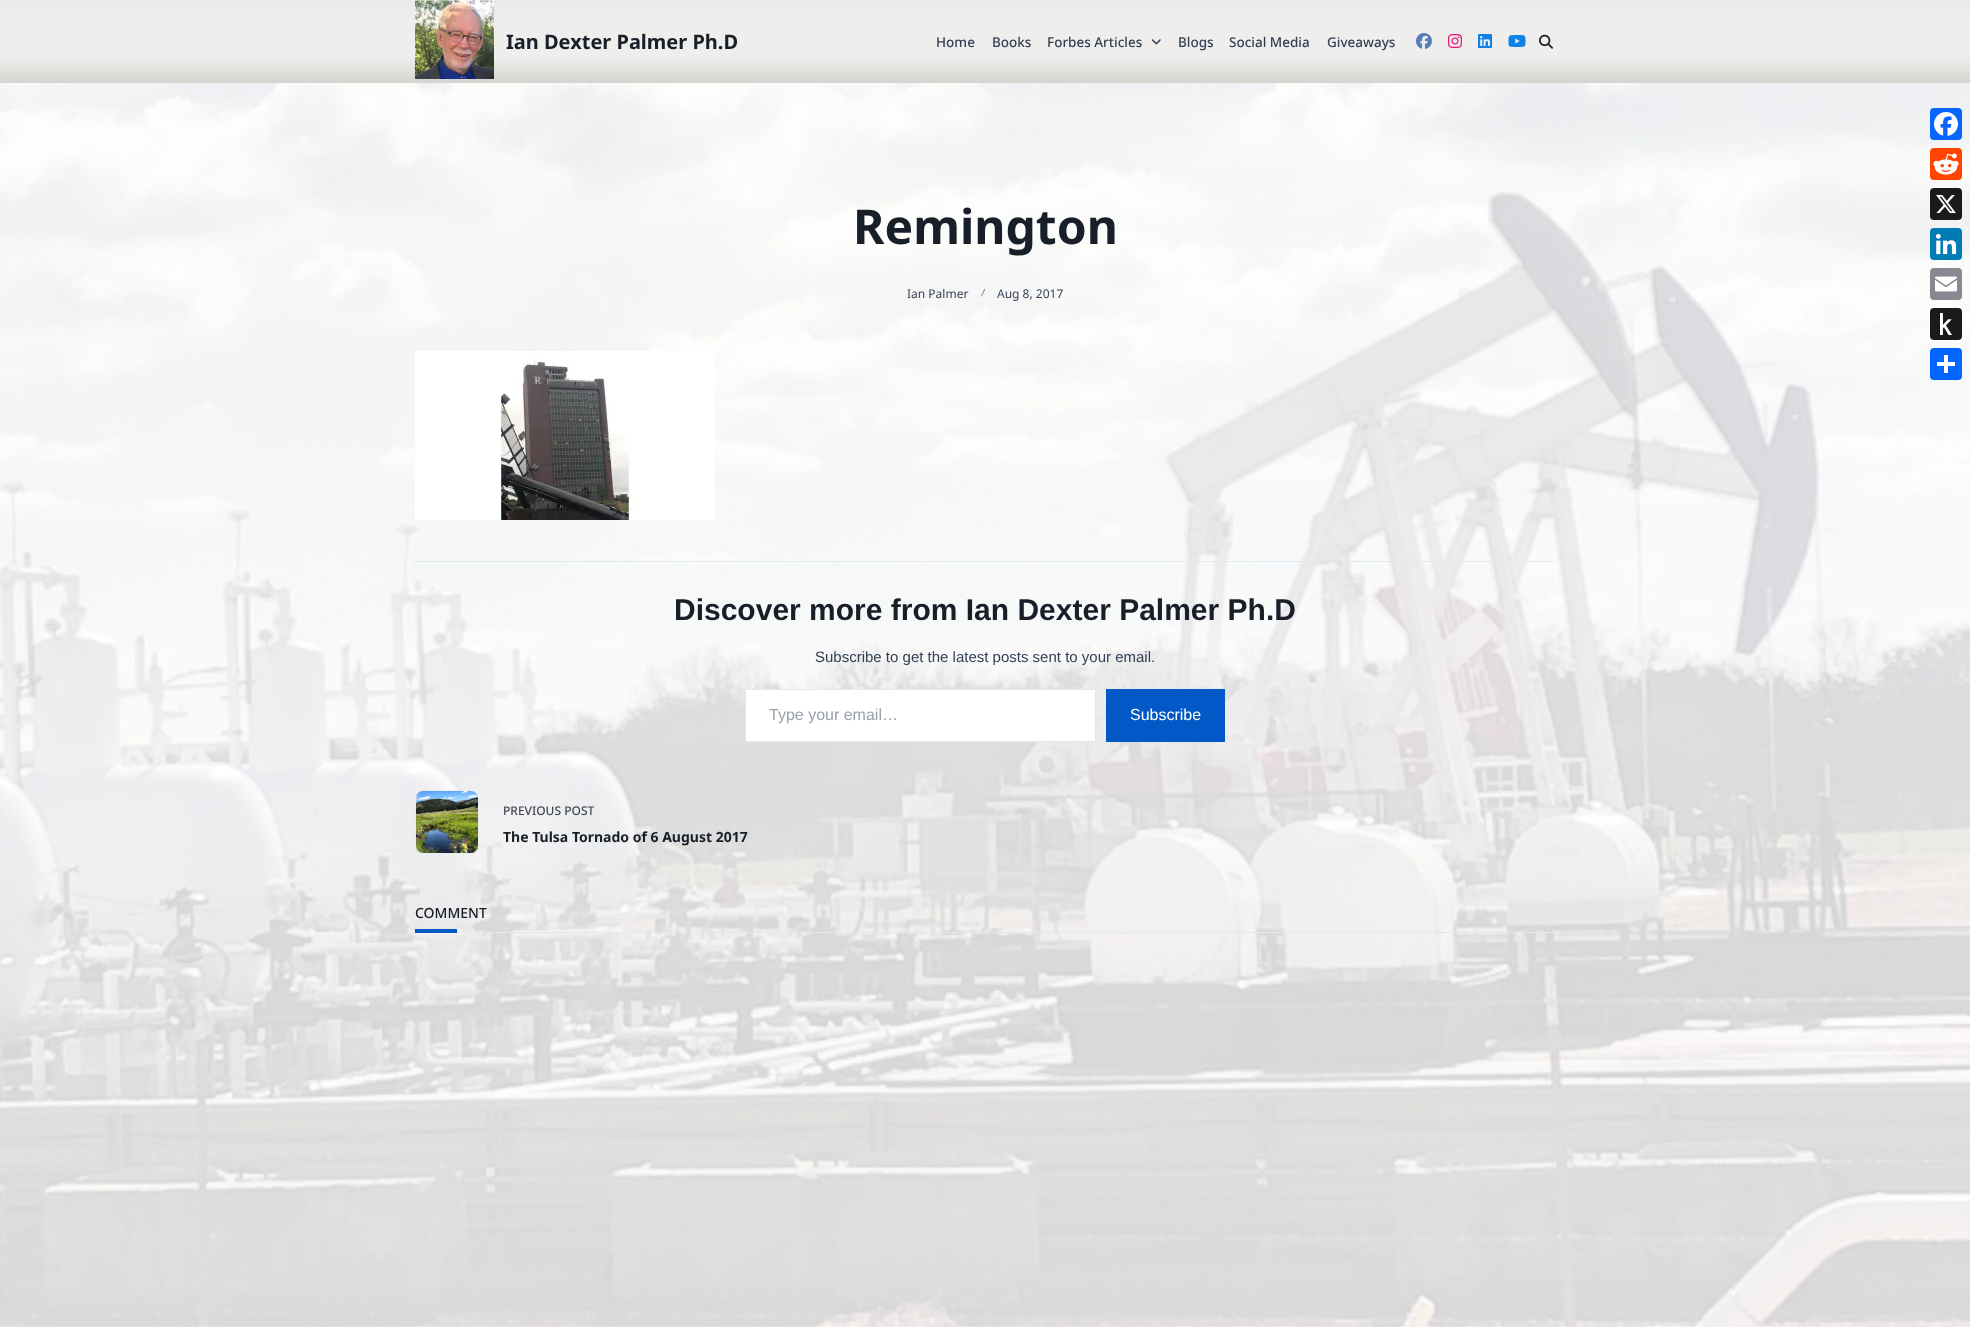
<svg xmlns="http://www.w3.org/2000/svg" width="1970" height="1327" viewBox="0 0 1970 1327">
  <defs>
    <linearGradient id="g1" gradientUnits="userSpaceOnUse" x1="985" y1="83" x2="985" y2="0"><stop offset="0" stop-color="rgb(213,212,208)"/><stop offset="0.01" stop-color="rgb(213,212,208)"/><stop offset="0.31" stop-color="rgb(238,238,236)"/><stop offset="0.75" stop-color="rgb(239,238,236)"/><stop offset="1" stop-color="rgb(233,233,231)"/></linearGradient>
  </defs>
  <rect width="100%" height="100%" fill="rgb(255,255,255)"/>
  <image x="0" y="83" width="1970" height="1244" href="pic1.png"/>
  <rect x="0" y="0" width="1970" height="83" fill="url(#g1)"/>
  <image x="415" y="0" width="79" height="79" href="pic2.png"/>
  <text x="506" y="49" font-family="Noto Sans" font-size="20" font-weight="bold" fill="rgb(24,31,40)">Ian Dexter Palmer Ph.D</text>
  <g font-family="Noto Sans" font-size="13.5" font-weight="500" fill="rgb(51,65,85)">
    <text x="936" y="47">Home</text>
    <text x="992" y="47">Books</text>
    <text x="1047" y="47">Forbes Articles</text>
  </g>
  <image x="1151" y="39" width="10" height="6" href="pic3.png"/>
  <g font-family="Noto Sans" font-size="13.5" font-weight="500" fill="rgb(51,65,85)">
    <text x="1178" y="47">Blogs</text>
    <text x="1229" y="47">Social Media</text>
    <text x="1327" y="47">Giveaways</text>
  </g>
  <image x="1416" y="33" width="16" height="16" href="pic4.png"/>
  <image x="1448" y="34" width="14" height="14" href="pic5.png"/>
  <image x="1478" y="34" width="14" height="14" href="pic6.png"/>
  <image x="1508" y="35" width="18" height="12" href="pic7.png"/>
  <image x="1539" y="34" width="14" height="15" href="pic8.png"/>
  <text x="853" y="244" font-family="Noto Sans" font-size="48" font-weight="bold" fill="rgb(24,31,40)">Remington</text>
  <text x="907" y="298" font-family="Noto Sans" font-size="12" fill="rgb(51,65,85)">Ian Palmer</text>
  <path d="M981 296.5L984.5 289L985 289.5L981.5 296.5Z" fill="rgb(51,65,85)"/>
  <text x="997" y="298" font-family="Noto Sans" font-size="12" fill="rgb(51,65,85)">Aug 8, 2017</text>
  <image x="415" y="351" width="300" height="169" href="pic9.png"/>
  <rect x="415" y="561" width="1140" height="1" fill="rgb(226,232,240)"/>
  <text x="674" y="620" font-family="Liberation Sans" font-size="30" font-weight="bold" fill="rgb(24,31,40)">Discover more from Ian Dexter Palmer Ph.D</text>
  <text x="815" y="662" font-family="Liberation Sans" font-size="15" fill="rgb(51,65,85)">Subscribe to get the latest posts sent to your email.</text>
  <rect x="745.5" y="689.5" width="350" height="52" fill="rgb(255,255,255)" stroke="rgb(226,232,240)"/>
  <text x="769" y="720" font-family="Liberation Sans" font-size="16" fill="rgb(153,160,170)">Type your email…</text>
  <rect x="1106" y="689" width="119" height="53" fill="rgb(2,88,199)"/>
  <text x="1130" y="720" font-family="Liberation Sans" font-size="16" fill="rgb(255,255,255)">Subscribe</text>
  <path d="M423 790.5H471C475 790.5 478.5 794 478.5 798V846C478.5 850 475 853.5 471 853.5H423C419 853.5 415.5 850 415.5 846V798C415.5 794 419 790.5 423 790.5Z" fill="none" stroke="rgb(226,232,240)" stroke-dasharray="3 2"/>
  <image x="416" y="791" width="62" height="62" href="pic10.png"/>
  <text x="503" y="815" font-family="Noto Sans" font-size="12" font-weight="500" fill="rgb(67,73,80)">PREVIOUS POST</text>
  <text x="503" y="842" font-family="Noto Sans" font-size="14" font-weight="bold" fill="rgb(24,31,40)">The Tulsa Tornado of 6 August 2017</text>
  <rect x="457" y="932" width="1098" height="1" fill="rgb(226,232,240)"/>
  <text x="415" y="918" font-family="Noto Sans" font-size="14" font-weight="500" fill="rgb(24,31,40)">COMMENT</text>
  <rect x="415" y="929" width="42" height="4" fill="rgb(2,88,199)"/>
  <rect x="1930" y="108" width="32" height="32" rx="4" fill="rgb(8,102,255)"/>
  <image x="1934" y="112" width="24" height="24" href="pic11.png"/>
  <rect x="1930" y="148" width="32" height="32" rx="4" fill="rgb(255,69,0)"/>
  <image x="1933" y="153" width="26" height="22" href="pic12.png"/>
  <rect x="1930" y="188" width="32" height="32" rx="4" fill="rgb(26,26,26)"/>
  <image x="1936" y="195" width="20" height="19" href="pic13.png"/>
  <rect x="1930" y="228" width="32" height="32" rx="4" fill="rgb(0,123,181)"/>
  <image x="1935" y="233" width="22" height="22" href="pic14.png"/>
  <rect x="1930" y="268" width="32" height="32" rx="4" fill="rgb(136,137,144)"/>
  <image x="1935" y="276" width="22" height="16" href="pic15.png"/>
  <rect x="1930" y="308" width="32" height="32" rx="4" fill="rgb(26,26,26)"/>
  <image x="1940" y="313" width="12" height="22" href="pic16.png"/>
  <rect x="1930" y="348" width="32" height="32" rx="4" fill="rgb(1,102,255)"/>
  <rect x="1944" y="355" width="4" height="18" fill="rgb(255,255,255)"/>
  <rect x="1937" y="362" width="18" height="4" fill="rgb(255,255,255)"/>
</svg>
